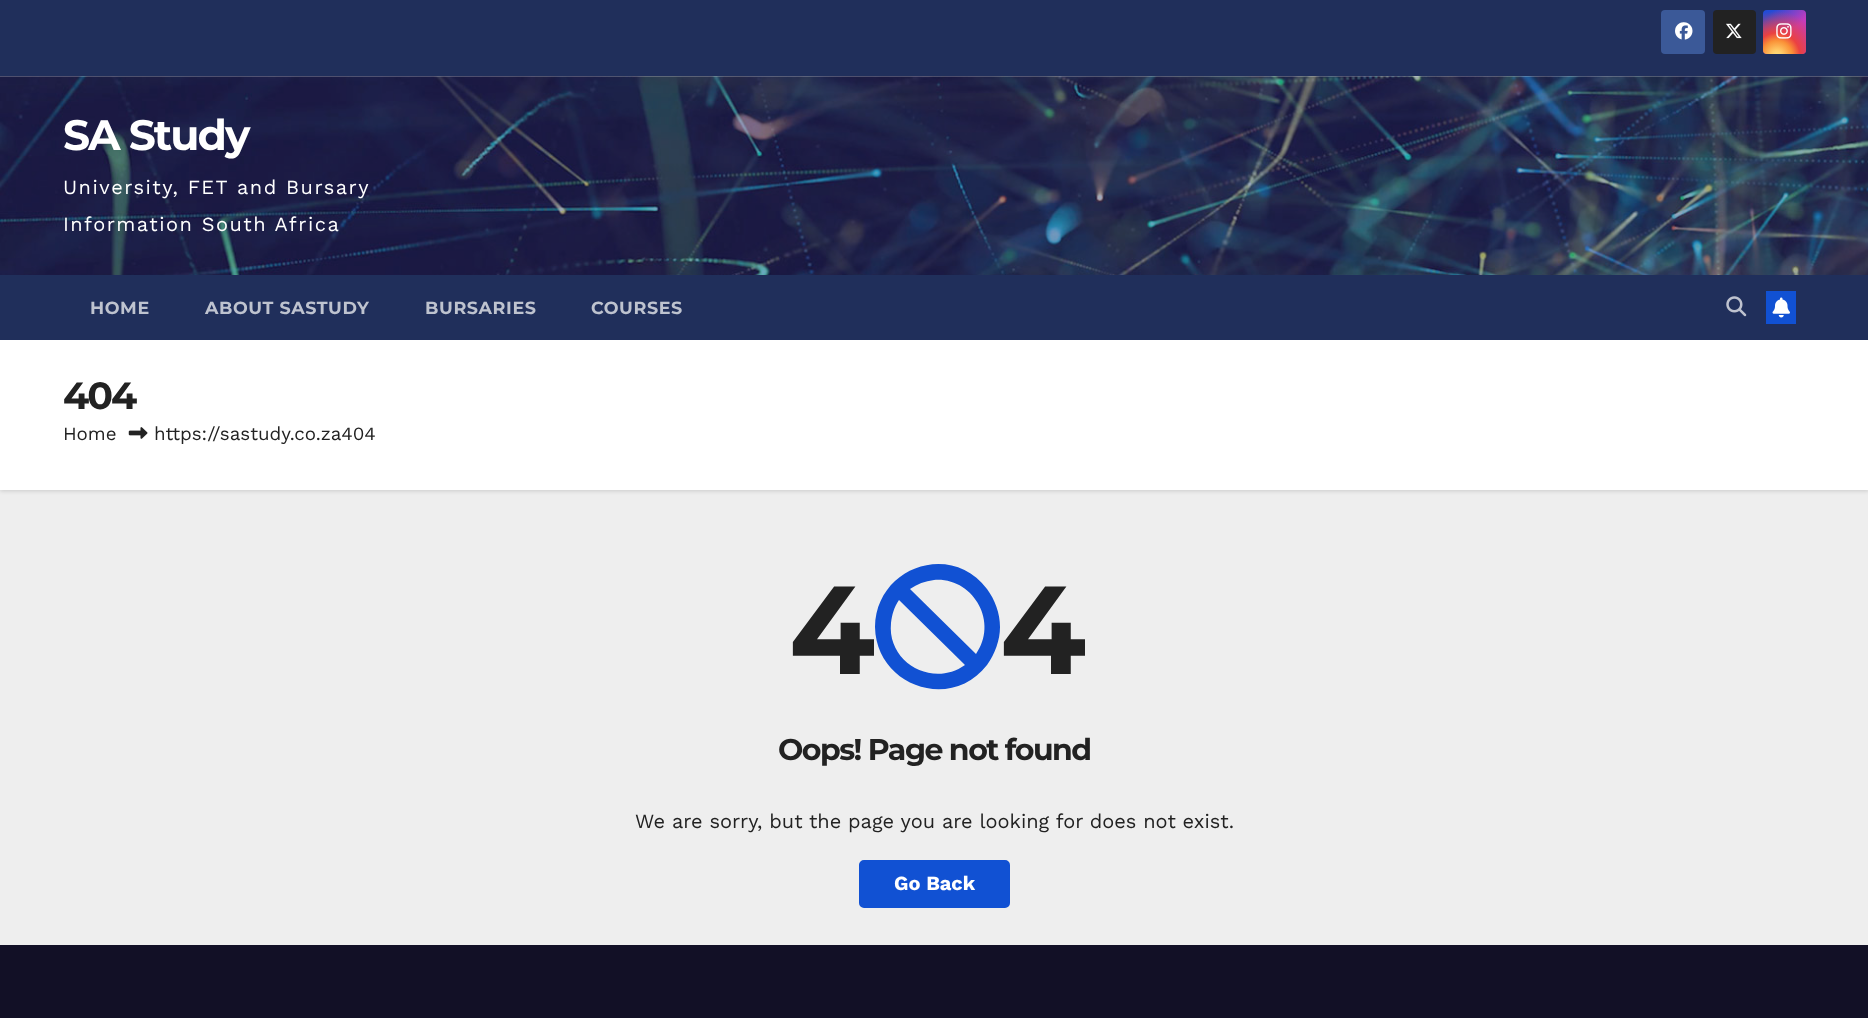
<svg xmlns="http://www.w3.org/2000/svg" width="1868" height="1018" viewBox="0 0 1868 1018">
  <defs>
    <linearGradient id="g1" gradientUnits="userSpaceOnUse" x1="1763" y1="10" x2="1806" y2="54"><stop offset="0.12" stop-color="rgb(35,75,215)"/><stop offset="0.58" stop-color="rgb(195,60,190)"/></linearGradient>
    <radialGradient id="g2" gradientUnits="userSpaceOnUse" cx="1777" cy="56" r="55"><stop offset="0" stop-color="rgb(255,225,125)"/><stop offset="0.1" stop-color="rgb(255,205,105)"/><stop offset="0.28" stop-color="rgb(250,145,55)"/><stop offset="0.42" stop-color="rgb(235,65,65)"/><stop offset="0.82" stop-color="rgb(235,65,65)" stop-opacity="0"/></radialGradient>
  </defs>
  <rect width="100%" height="100%" fill="rgb(238,238,238)"/>
  <rect x="0" y="0" width="1868" height="76" fill="rgb(32,47,91)"/>
  <rect x="1661" y="10" width="44" height="44" rx="4" fill="rgb(59,89,152)"/>
  <image x="1675" y="22" width="18" height="18" href="pic1.png"/>
  <rect x="1713" y="10" width="43" height="44" rx="4" fill="rgb(34,34,34)"/>
  <image x="1726" y="23" width="16" height="16" href="pic2.png"/>
  <rect x="1763" y="10" width="43" height="44" rx="4" fill="url(#g1)"/>
  <rect x="1763" y="10" width="43" height="44" rx="4" fill="url(#g2)"/>
  <image x="1776" y="23" width="16" height="16" href="pic3.png"/>
  <image x="0" y="76" width="1868" height="199" href="pic4.png"/>
  <text x="63" y="150" font-family="Montserrat" font-size="42.5" font-weight="bold" letter-spacing="-2" fill="rgb(255,255,255)">SA Study</text>
  <g font-family="Work Sans" font-size="20" letter-spacing="1.5" fill="rgb(255,255,255)">
    <text>
      <tspan x="63" y="194">University, FET and Bursary</tspan>
      <tspan x="63" y="231">Information South Africa</tspan>
    </text>
  </g>
  <rect x="0" y="341" width="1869" height="150" fill="rgba(0,0,0,0.15)" filter="blur(2px)"/>
  <rect x="0" y="275" width="1868" height="65" fill="rgb(32,47,91)"/>
  <g font-family="Montserrat" font-size="17.5" font-weight="bold" letter-spacing="0.6" fill="rgb(190,195,207)">
    <text x="90" y="314">HOME</text>
    <text x="205" y="314">ABOUT SASTUDY</text>
    <text x="425" y="314">BURSARIES</text>
    <text x="591" y="314">COURSES</text>
  </g>
  <image x="1726" y="296" width="21" height="21" href="pic5.png"/>
  <rect x="1766" y="291" width="30" height="33" fill="rgb(17,81,211)"/>
  <image x="1772" y="297" width="18" height="21" href="pic6.png"/>
  <rect x="0" y="340" width="1868" height="150" fill="rgb(255,255,255)"/>
  <text x="63" y="409" font-family="Montserrat" font-size="38" font-weight="bold" letter-spacing="-2" fill="rgb(34,34,34)">404</text>
  <text x="63" y="440" font-family="Work Sans" font-size="18.75" fill="rgb(34,34,34)">Home</text>
  <image x="128" y="427" width="20" height="12" href="pic7.png"/>
  <text x="154" y="440" font-family="Work Sans" font-size="18.75" fill="rgb(34,34,34)">https://sastudy.co.za404</text>
  <text x="789" y="674" font-family="Montserrat" font-size="125" font-weight="bold" letter-spacing="-6" fill="rgb(34,34,34)">4</text>
  <path d="M965 665L899 600C894 607 892 615 891 623C887 663 933 688 965 665ZM976 654C999 622 973 577 934 580C925 581 917 584 910 589ZM875 627C876 567 951 541 987 589C995 600 1000 613 1000 627C1000 640 995 654 987 665C951 712 876 686 875 627Z" fill="rgb(17,81,211)"/>
  <text x="1000" y="674" font-family="Montserrat" font-size="125" font-weight="bold" letter-spacing="-6" fill="rgb(34,34,34)">4</text>
  <text x="778" y="760" font-family="Montserrat" font-size="30" font-weight="bold" letter-spacing="-1.5" fill="rgb(34,34,34)">Oops! Page not found</text>
  <text x="635" y="828" font-family="Work Sans" font-size="20" fill="rgb(34,34,34)">We are sorry, but the page you are looking for does not exist.</text>
  <rect x="860.5" y="861.5" width="148" height="45" rx="3.5" fill="rgb(17,81,211)" stroke="rgb(17,81,211)" stroke-width="3"/>
  <text x="894" y="890" font-family="Work Sans" font-size="20" font-weight="bold" fill="rgb(255,255,255)">Go Back</text>
  <rect x="0" y="945" width="1868" height="73" fill="rgb(18,16,38)"/>
</svg>
